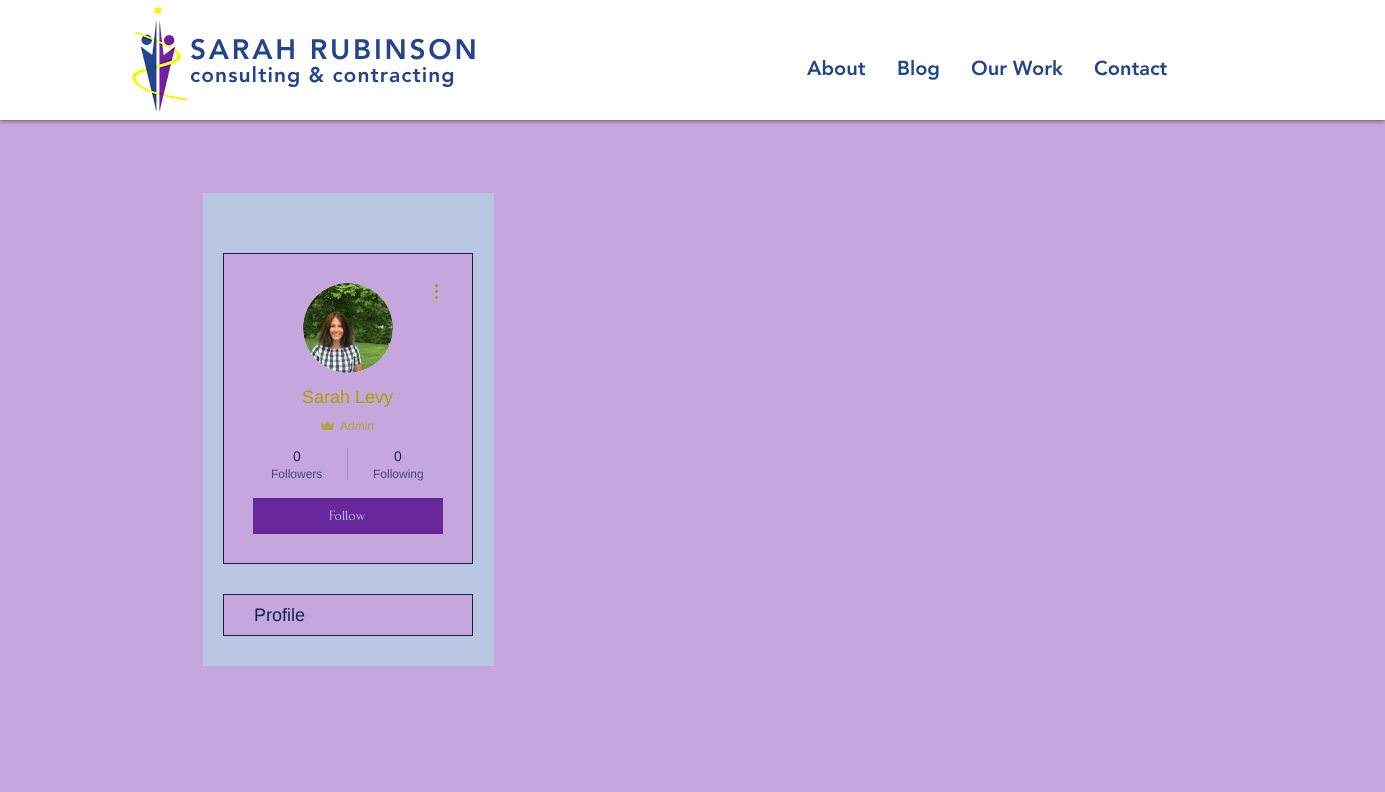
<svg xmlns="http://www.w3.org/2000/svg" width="1385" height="792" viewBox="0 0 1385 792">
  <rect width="100%" height="100%" fill="rgb(197,166,221)"/>
  <rect x="0" y="0" width="1385" height="120" fill="rgba(0,0,0,0.7)" filter="blur(2.5px)"/>
  <rect x="0" y="0" width="1385" height="120" fill="rgb(255,255,255)"/>
  <image x="132" y="6" width="58" height="106" href="pic1.png"/>
  <text x="190" y="59" font-family="'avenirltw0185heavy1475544'" font-size="28" font-weight="900" letter-spacing="2.75" fill="rgb(35,69,142)">SARAH RUBINSON</text>
  <text x="190" y="82" font-family="'avenirltw0185heavy1475544'" font-size="21" font-weight="900" letter-spacing="1.05" fill="rgb(35,69,142)">consulting &amp; contracting</text>
  <g font-family="'avenirltw0185heavy1475544'" font-size="20" font-weight="900" fill="rgb(35,69,142)">
    <text x="807" y="75">About</text>
    <text x="897" y="75">Blog</text>
    <text x="971" y="75">Our Work</text>
    <text x="1094" y="75">Contact</text>
  </g>
  <rect x="203" y="193" width="291" height="473" fill="rgb(184,198,227)"/>
  <rect x="223.5" y="253.5" width="249" height="310" fill="rgb(197,166,221)" stroke="rgb(18,34,71)"/>
  <circle cx="348" cy="328" r="45" fill="rgb(216,216,216)"/>
  <image x="303" y="283" width="90" height="90" href="pic2.png"/>
  <image x="435" y="284" width="3" height="15" href="pic3.png"/>
  <text x="302" y="403" font-family="Liberation Sans" font-size="18" fill="rgb(169,163,0)">Sarah Levy</text>
  <image x="321" y="422" width="13" height="8" href="pic4.png"/>
  <text x="340" y="430" font-family="Liberation Sans" font-size="12" fill="rgb(177,164,66)">Admin</text>
  <text x="293" y="461" font-family="Liberation Sans" font-size="14" fill="rgb(18,34,71)">0</text>
  <text x="271" y="478" font-family="Liberation Sans" font-size="12" fill="rgb(72,74,116)">Followers</text>
  <rect x="347" y="448" width="1" height="32" fill="rgb(161,140,191)"/>
  <text x="394" y="461" font-family="Liberation Sans" font-size="14" fill="rgb(18,34,71)">0</text>
  <text x="373" y="478" font-family="Liberation Sans" font-size="12" fill="rgb(72,74,116)">Following</text>
  <rect x="253" y="498" width="190" height="36" fill="rgb(104,39,154)"/>
  <text x="329" y="520" font-family="Forum" font-size="14" fill="rgb(184,198,227)">Follow</text>
  <rect x="223.5" y="594.5" width="249" height="41" fill="none" stroke="rgb(18,34,71)"/>
  <rect x="224" y="595" width="248" height="40" fill="rgb(197,166,221)"/>
  <text x="254" y="621" font-family="Liberation Sans" font-size="18" fill="rgb(18,34,71)">Profile</text>
</svg>
